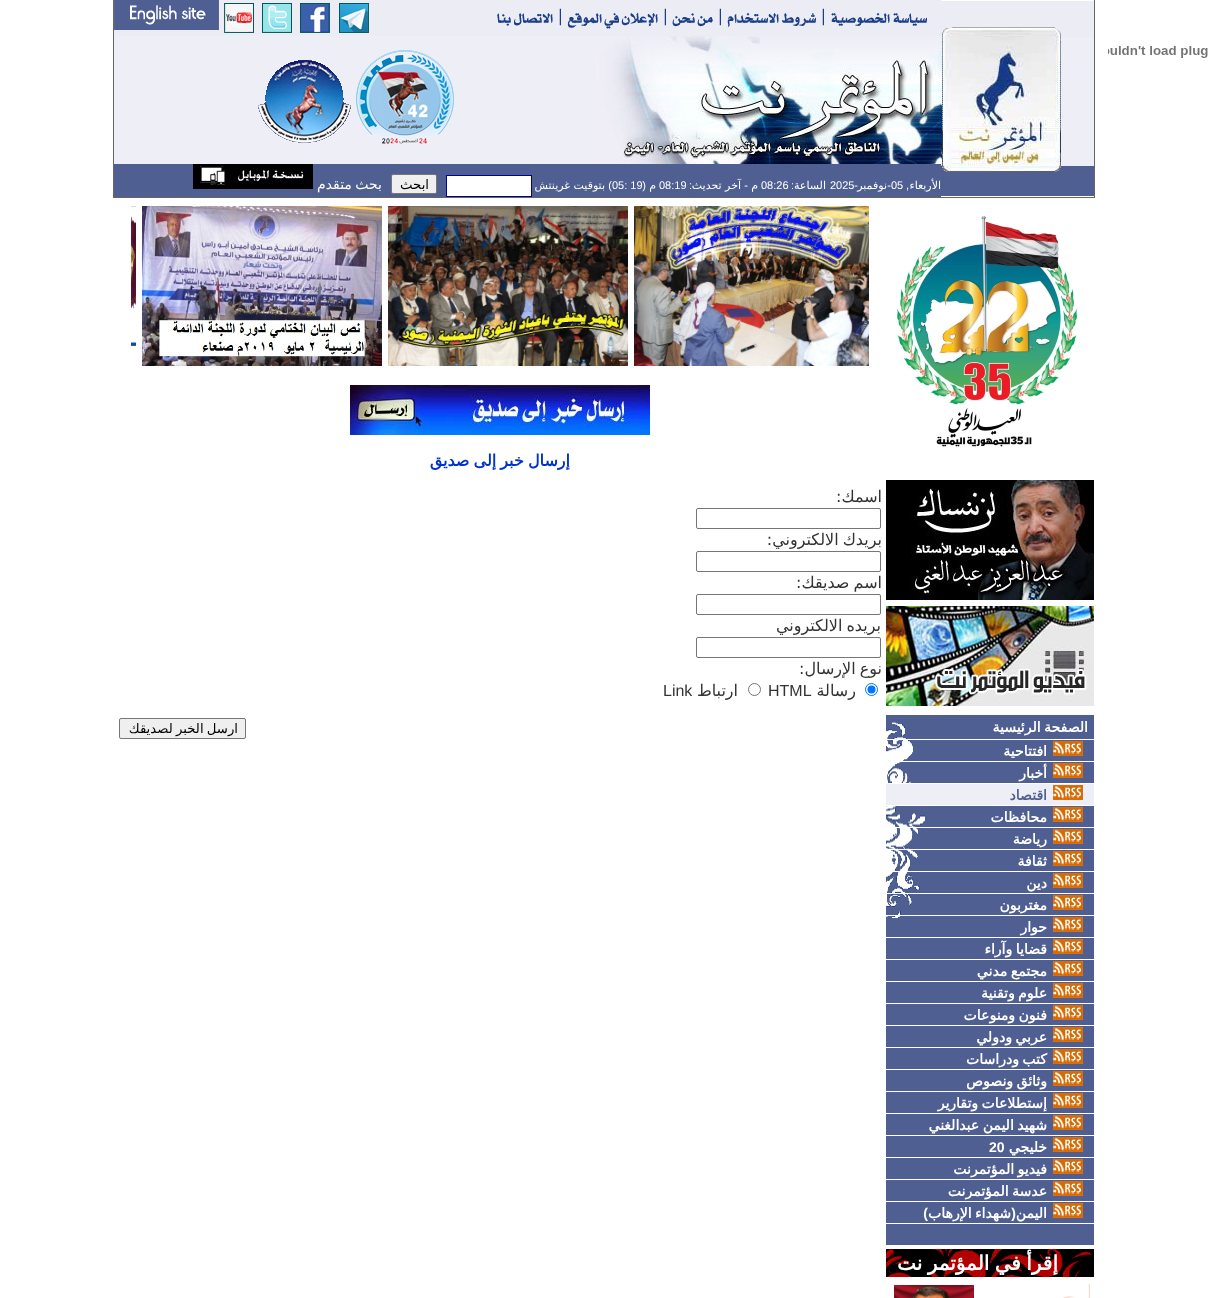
<svg xmlns="http://www.w3.org/2000/svg" width="1208" height="1298" viewBox="0 0 1208 1298">
  <rect width="100%" height="100%" fill="rgb(255,255,255)"/>
  <image x="1108" y="46" width="100" height="12" href="pic1.png"/>
  <rect x="1094" y="0" width="1" height="198" fill="rgb(102,102,102)"/>
  <rect x="113" y="197" width="982" height="1" fill="rgb(102,102,102)"/>
  <rect x="113" y="0" width="1" height="198" fill="rgb(102,102,102)"/>
  <image x="941" y="1" width="153" height="195" href="pic2.png"/>
  <image x="114" y="0" width="827" height="36" href="pic3.png"/>
  <image x="594" y="36" width="347" height="128" href="pic4.png"/>
  <rect x="114" y="36" width="480" height="128" fill="rgb(238,238,246)"/>
  <image x="356" y="50" width="98" height="94" href="pic5.png"/>
  <image x="258" y="60" width="93" height="83" href="pic6.png"/>
  <rect x="114" y="164" width="827" height="33" fill="rgb(79,95,145)"/>
  <text x="941" y="189" font-family="DejaVu Sans" font-size="11" direction="rtl" fill="rgb(255,255,255)">الأربعاء</text>
  <text x="891" y="189" font-family="Liberation Sans" font-size="11" fill="rgb(255,255,255)">05</text>
  <g font-family="Liberation Sans" font-size="11" direction="rtl" fill="rgb(255,255,255)">
    <text x="891" y="189">-</text>
    <text x="858" y="189">-</text>
  </g>
  <text x="887" y="189" font-family="DejaVu Sans" font-size="11" direction="rtl" fill="rgb(255,255,255)">نوفمبر</text>
  <text x="830" y="189" font-family="Liberation Sans" font-size="11" fill="rgb(255,255,255)">2025</text>
  <text x="826" y="189" font-family="DejaVu Sans" font-size="11" direction="rtl" fill="rgb(255,255,255)">الساعة</text>
  <text x="794" y="189" font-family="Liberation Sans" font-size="11" direction="rtl" fill="rgb(255,255,255)">:</text>
  <text x="761" y="189" font-family="Liberation Sans" font-size="11" fill="rgb(255,255,255)">08:26</text>
  <text x="758" y="189" font-family="DejaVu Sans" font-size="11" direction="rtl" fill="rgb(255,255,255)">م</text>
  <text x="748" y="189" font-family="Liberation Sans" font-size="11" direction="rtl" fill="rgb(255,255,255)">-</text>
  <text x="741" y="189" font-family="DejaVu Sans" font-size="11" direction="rtl" fill="rgb(255,255,255)">آخر تحديث</text>
  <text x="692" y="189" font-family="Liberation Sans" font-size="11" direction="rtl" fill="rgb(255,255,255)">:</text>
  <text x="659" y="189" font-family="Liberation Sans" font-size="11" fill="rgb(255,255,255)">08:19</text>
  <text x="656" y="189" font-family="DejaVu Sans" font-size="11" direction="rtl" fill="rgb(255,255,255)">م</text>
  <text x="646" y="189" font-family="Liberation Sans" font-size="11" direction="rtl" fill="rgb(255,255,255)">(</text>
  <text x="612" y="189" font-family="Liberation Sans" font-size="11" fill="rgb(255,255,255)">05: 19</text>
  <text x="612" y="189" font-family="Liberation Sans" font-size="11" direction="rtl" fill="rgb(255,255,255)">)</text>
  <text x="605" y="189" font-family="DejaVu Sans" font-size="11" direction="rtl" fill="rgb(255,255,255)">بتوقيت غرينتش</text>
  <rect x="446.5" y="175.5" width="85" height="21" fill="rgb(255,255,255)" stroke="rgb(0,0,153)"/>
  <rect x="391.5" y="174.5" width="45" height="19" rx="1.5" fill="rgb(239,239,239)" stroke="rgb(118,118,118)"/>
  <text x="429" y="189" font-family="DejaVu Sans" font-size="13.25" direction="rtl" fill="rgb(0,0,0)">ابحث</text>
  <text x="382" y="189" word-spacing="-1" font-family="DejaVu Sans" font-size="14" direction="rtl" fill="rgb(255,255,255)">بحث متقدم</text>
  <image x="193" y="164" width="120" height="25" href="pic7.png"/>
  <text x="909" y="189" font-family="Liberation Sans" font-size="11" direction="rtl" fill="rgb(255,255,255)">,</text>
  <image x="634" y="206" width="235" height="160" href="pic8.png"/>
  <image x="388" y="206" width="240" height="160" href="pic9.png"/>
  <image x="142" y="206" width="240" height="160" href="pic10.png"/>
  <image x="131" y="206" width="5" height="141" href="pic11.png"/>
  <image x="350" y="385" width="300" height="50" href="pic12.png"/>
  <text x="570" y="466" word-spacing="-1" font-family="DejaVu Sans" font-size="16" font-weight="bold" direction="rtl" fill="rgb(0,51,204)">إرسال خبر إلى صديق</text>
  <text x="882" y="502" font-family="DejaVu Sans" font-size="16" direction="rtl" fill="rgb(51,51,51)">اسمك:</text>
  <rect x="696.5" y="508.5" width="184" height="20" rx="1.5" fill="none" stroke="rgb(118,118,118)"/>
  <text x="882" y="545" word-spacing="-1" font-family="DejaVu Sans" font-size="16" direction="rtl" fill="rgb(51,51,51)">بريدك الالكتروني:</text>
  <rect x="696.5" y="551.5" width="184" height="20" rx="1.5" fill="none" stroke="rgb(118,118,118)"/>
  <text x="882" y="588" word-spacing="-1" font-family="DejaVu Sans" font-size="16" direction="rtl" fill="rgb(51,51,51)">اسم صديقك:</text>
  <rect x="696.5" y="594.5" width="184" height="20" rx="1.5" fill="none" stroke="rgb(118,118,118)"/>
  <text x="881" y="631" word-spacing="-1" font-family="DejaVu Sans" font-size="16" direction="rtl" fill="rgb(51,51,51)">بريده الالكتروني</text>
  <rect x="696.5" y="637.5" width="184" height="20" rx="1.5" fill="none" stroke="rgb(118,118,118)"/>
  <text x="882" y="674" word-spacing="-1" font-family="DejaVu Sans" font-size="16" direction="rtl" fill="rgb(51,51,51)">نوع الإرسال:</text>
  <circle cx="871.5" cy="689.5" r="6" fill="none" stroke="rgb(0,117,255)"/>
  <circle cx="871.5" cy="689.5" r="4" fill="rgb(0,117,255)"/>
  <text x="856" y="696" font-family="DejaVu Sans" font-size="16" direction="rtl" fill="rgb(51,51,51)">رسالة</text>
  <text x="768" y="696" font-family="Liberation Sans" font-size="16" fill="rgb(51,51,51)">HTML</text>
  <circle cx="754.5" cy="689.5" r="6" fill="none" stroke="rgb(118,118,118)"/>
  <text x="738" y="696" font-family="DejaVu Sans" font-size="16" direction="rtl" fill="rgb(51,51,51)">ارتباط</text>
  <text x="663" y="696" font-family="Liberation Sans" font-size="16" fill="rgb(51,51,51)">Link</text>
  <rect x="119.5" y="718.5" width="126" height="20" rx="1.5" fill="rgb(239,239,239)" stroke="rgb(118,118,118)"/>
  <text x="238" y="733" word-spacing="-1" font-family="DejaVu Sans" font-size="13.25" direction="rtl" fill="rgb(0,0,0)">ارسل الخبر لصديقك</text>
  <image x="895" y="215" width="183" height="233" href="pic13.png"/>
  <image x="886" y="480" width="208" height="120" href="pic14.png"/>
  <image x="886" y="606" width="208" height="100" href="pic15.png"/>
  <rect x="886" y="715" width="208" height="530" fill="rgb(79,95,145)"/>
  <image x="886" y="722" width="39" height="197" href="pic16.png"/>
  <text x="1088" y="732" word-spacing="-1" font-family="DejaVu Sans" font-size="14" font-weight="bold" direction="rtl" fill="rgb(255,255,255)">الصفحة الرئيسية</text>
  <rect x="886" y="739" width="208" height="1" fill="rgb(255,255,255)"/>
  <image x="1053" y="741" width="30" height="15" href="pic17.png"/>
  <text x="1047" y="756" font-family="DejaVu Sans" font-size="14" font-weight="bold" direction="rtl" fill="rgb(255,255,255)">افتتاحية</text>
  <rect x="900" y="761" width="194" height="1" fill="rgb(255,255,255)"/>
  <image x="1053" y="763" width="30" height="15" href="pic17.png"/>
  <text x="1047" y="778" font-family="DejaVu Sans" font-size="14" font-weight="bold" direction="rtl" fill="rgb(255,255,255)">أخبار</text>
  <rect x="886" y="783" width="208" height="1" fill="rgb(255,255,255)"/>
  <rect x="886" y="784" width="208" height="21" fill="rgb(238,238,246)"/>
  <image x="1053" y="785" width="30" height="15" href="pic17.png"/>
  <text x="1047" y="800" font-family="DejaVu Sans" font-size="14" font-weight="bold" direction="rtl" fill="rgb(79,95,145)">اقتصاد</text>
  <rect x="886" y="805" width="208" height="1" fill="rgb(255,255,255)"/>
  <image x="1053" y="807" width="30" height="15" href="pic17.png"/>
  <text x="1047" y="822" font-family="DejaVu Sans" font-size="14" font-weight="bold" direction="rtl" fill="rgb(255,255,255)">محافظات</text>
  <rect x="896" y="827" width="198" height="1" fill="rgb(255,255,255)"/>
  <image x="1053" y="829" width="30" height="15" href="pic17.png"/>
  <text x="1047" y="844" font-family="DejaVu Sans" font-size="14" font-weight="bold" direction="rtl" fill="rgb(255,255,255)">رياضة</text>
  <rect x="886" y="849" width="208" height="1" fill="rgb(255,255,255)"/>
  <image x="1053" y="851" width="30" height="15" href="pic17.png"/>
  <text x="1047" y="866" font-family="DejaVu Sans" font-size="14" font-weight="bold" direction="rtl" fill="rgb(255,255,255)">ثقافة</text>
  <rect x="886" y="871" width="208" height="1" fill="rgb(255,255,255)"/>
  <image x="1053" y="873" width="30" height="15" href="pic17.png"/>
  <text x="1047" y="888" font-family="DejaVu Sans" font-size="14" font-weight="bold" direction="rtl" fill="rgb(255,255,255)">دين</text>
  <rect x="886" y="893" width="208" height="1" fill="rgb(255,255,255)"/>
  <image x="1053" y="895" width="30" height="15" href="pic17.png"/>
  <text x="1047" y="910" font-family="DejaVu Sans" font-size="14" font-weight="bold" direction="rtl" fill="rgb(255,255,255)">مغتربون</text>
  <rect x="886" y="915" width="208" height="1" fill="rgb(255,255,255)"/>
  <image x="1053" y="917" width="30" height="15" href="pic17.png"/>
  <text x="1047" y="932" font-family="DejaVu Sans" font-size="14" font-weight="bold" direction="rtl" fill="rgb(255,255,255)">حوار</text>
  <rect x="886" y="937" width="208" height="1" fill="rgb(255,255,255)"/>
  <image x="1053" y="939" width="30" height="15" href="pic17.png"/>
  <text x="1047" y="954" word-spacing="-1" font-family="DejaVu Sans" font-size="14" font-weight="bold" direction="rtl" fill="rgb(255,255,255)">قضايا وآراء</text>
  <rect x="886" y="959" width="208" height="1" fill="rgb(255,255,255)"/>
  <image x="1053" y="961" width="30" height="15" href="pic17.png"/>
  <text x="1047" y="976" word-spacing="-1" font-family="DejaVu Sans" font-size="14" font-weight="bold" direction="rtl" fill="rgb(255,255,255)">مجتمع مدني</text>
  <rect x="886" y="981" width="208" height="1" fill="rgb(255,255,255)"/>
  <image x="1053" y="983" width="30" height="15" href="pic17.png"/>
  <text x="1047" y="998" word-spacing="-1" font-family="DejaVu Sans" font-size="14" font-weight="bold" direction="rtl" fill="rgb(255,255,255)">علوم وتقنية</text>
  <rect x="886" y="1003" width="208" height="1" fill="rgb(255,255,255)"/>
  <image x="1053" y="1005" width="30" height="15" href="pic17.png"/>
  <text x="1047" y="1020" word-spacing="-1" font-family="DejaVu Sans" font-size="14" font-weight="bold" direction="rtl" fill="rgb(255,255,255)">فنون ومنوعات</text>
  <rect x="886" y="1025" width="208" height="1" fill="rgb(255,255,255)"/>
  <image x="1053" y="1027" width="30" height="15" href="pic17.png"/>
  <text x="1047" y="1042" word-spacing="-1" font-family="DejaVu Sans" font-size="14" font-weight="bold" direction="rtl" fill="rgb(255,255,255)">عربي ودولي</text>
  <rect x="886" y="1047" width="208" height="1" fill="rgb(255,255,255)"/>
  <image x="1053" y="1049" width="30" height="15" href="pic17.png"/>
  <text x="1047" y="1064" word-spacing="-1" font-family="DejaVu Sans" font-size="14" font-weight="bold" direction="rtl" fill="rgb(255,255,255)">كتب ودراسات</text>
  <rect x="886" y="1069" width="208" height="1" fill="rgb(255,255,255)"/>
  <image x="1053" y="1071" width="30" height="15" href="pic17.png"/>
  <text x="1047" y="1086" word-spacing="-1" font-family="DejaVu Sans" font-size="14" font-weight="bold" direction="rtl" fill="rgb(255,255,255)">وثائق ونصوص</text>
  <rect x="886" y="1091" width="208" height="1" fill="rgb(255,255,255)"/>
  <image x="1053" y="1093" width="30" height="15" href="pic17.png"/>
  <text x="1047" y="1108" word-spacing="-1" font-family="DejaVu Sans" font-size="14" font-weight="bold" direction="rtl" fill="rgb(255,255,255)">إستطلاعات وتقارير</text>
  <rect x="886" y="1113" width="208" height="1" fill="rgb(255,255,255)"/>
  <image x="1053" y="1115" width="30" height="15" href="pic17.png"/>
  <text x="1047" y="1130" word-spacing="-1" font-family="DejaVu Sans" font-size="14" font-weight="bold" direction="rtl" fill="rgb(255,255,255)">شهيد اليمن عبدالغني</text>
  <rect x="886" y="1135" width="208" height="1" fill="rgb(255,255,255)"/>
  <image x="1053" y="1137" width="30" height="15" href="pic17.png"/>
  <text x="1047" y="1152" font-family="DejaVu Sans" font-size="14" font-weight="bold" direction="rtl" fill="rgb(255,255,255)">خليجي</text>
  <text x="989" y="1152" font-family="Liberation Sans" font-size="14" font-weight="bold" fill="rgb(255,255,255)">20</text>
  <rect x="886" y="1157" width="208" height="1" fill="rgb(255,255,255)"/>
  <image x="1053" y="1159" width="30" height="15" href="pic17.png"/>
  <text x="1047" y="1174" word-spacing="-1" font-family="DejaVu Sans" font-size="14" font-weight="bold" direction="rtl" fill="rgb(255,255,255)">فيديو المؤتمرنت</text>
  <rect x="886" y="1179" width="208" height="1" fill="rgb(255,255,255)"/>
  <image x="1053" y="1181" width="30" height="15" href="pic17.png"/>
  <text x="1047" y="1196" word-spacing="-1" font-family="DejaVu Sans" font-size="14" font-weight="bold" direction="rtl" fill="rgb(255,255,255)">عدسة المؤتمرنت</text>
  <rect x="886" y="1201" width="208" height="1" fill="rgb(255,255,255)"/>
  <image x="1053" y="1203" width="30" height="15" href="pic17.png"/>
  <text x="1047" y="1218" font-family="DejaVu Sans" font-size="14" font-weight="bold" direction="rtl" fill="rgb(255,255,255)">اليمن</text>
  <text x="1016" y="1218" font-family="Liberation Sans" font-size="14" font-weight="bold" direction="rtl" fill="rgb(255,255,255)">(</text>
  <text x="1011" y="1218" word-spacing="-1" font-family="DejaVu Sans" font-size="14" font-weight="bold" direction="rtl" fill="rgb(255,255,255)">شهداء الإرهاب</text>
  <text x="928" y="1218" font-family="Liberation Sans" font-size="14" font-weight="bold" direction="rtl" fill="rgb(255,255,255)">)</text>
  <rect x="886" y="1223" width="208" height="1" fill="rgb(255,255,255)"/>
  <rect x="1093" y="1249" width="1" height="28" fill="rgb(0,0,0)"/>
  <image x="886" y="1249" width="207" height="28" href="pic18.png"/>
  <text x="1058" y="1270" word-spacing="-1" font-family="DejaVu Sans" font-size="20" font-weight="bold" direction="rtl" fill="rgb(255,255,255)">إقرأ في المؤتمر نت</text>
  <image x="1062" y="1284" width="28" height="14" href="pic19.png"/>
  <image x="894" y="1285" width="80" height="13" href="pic20.png"/>
</svg>
